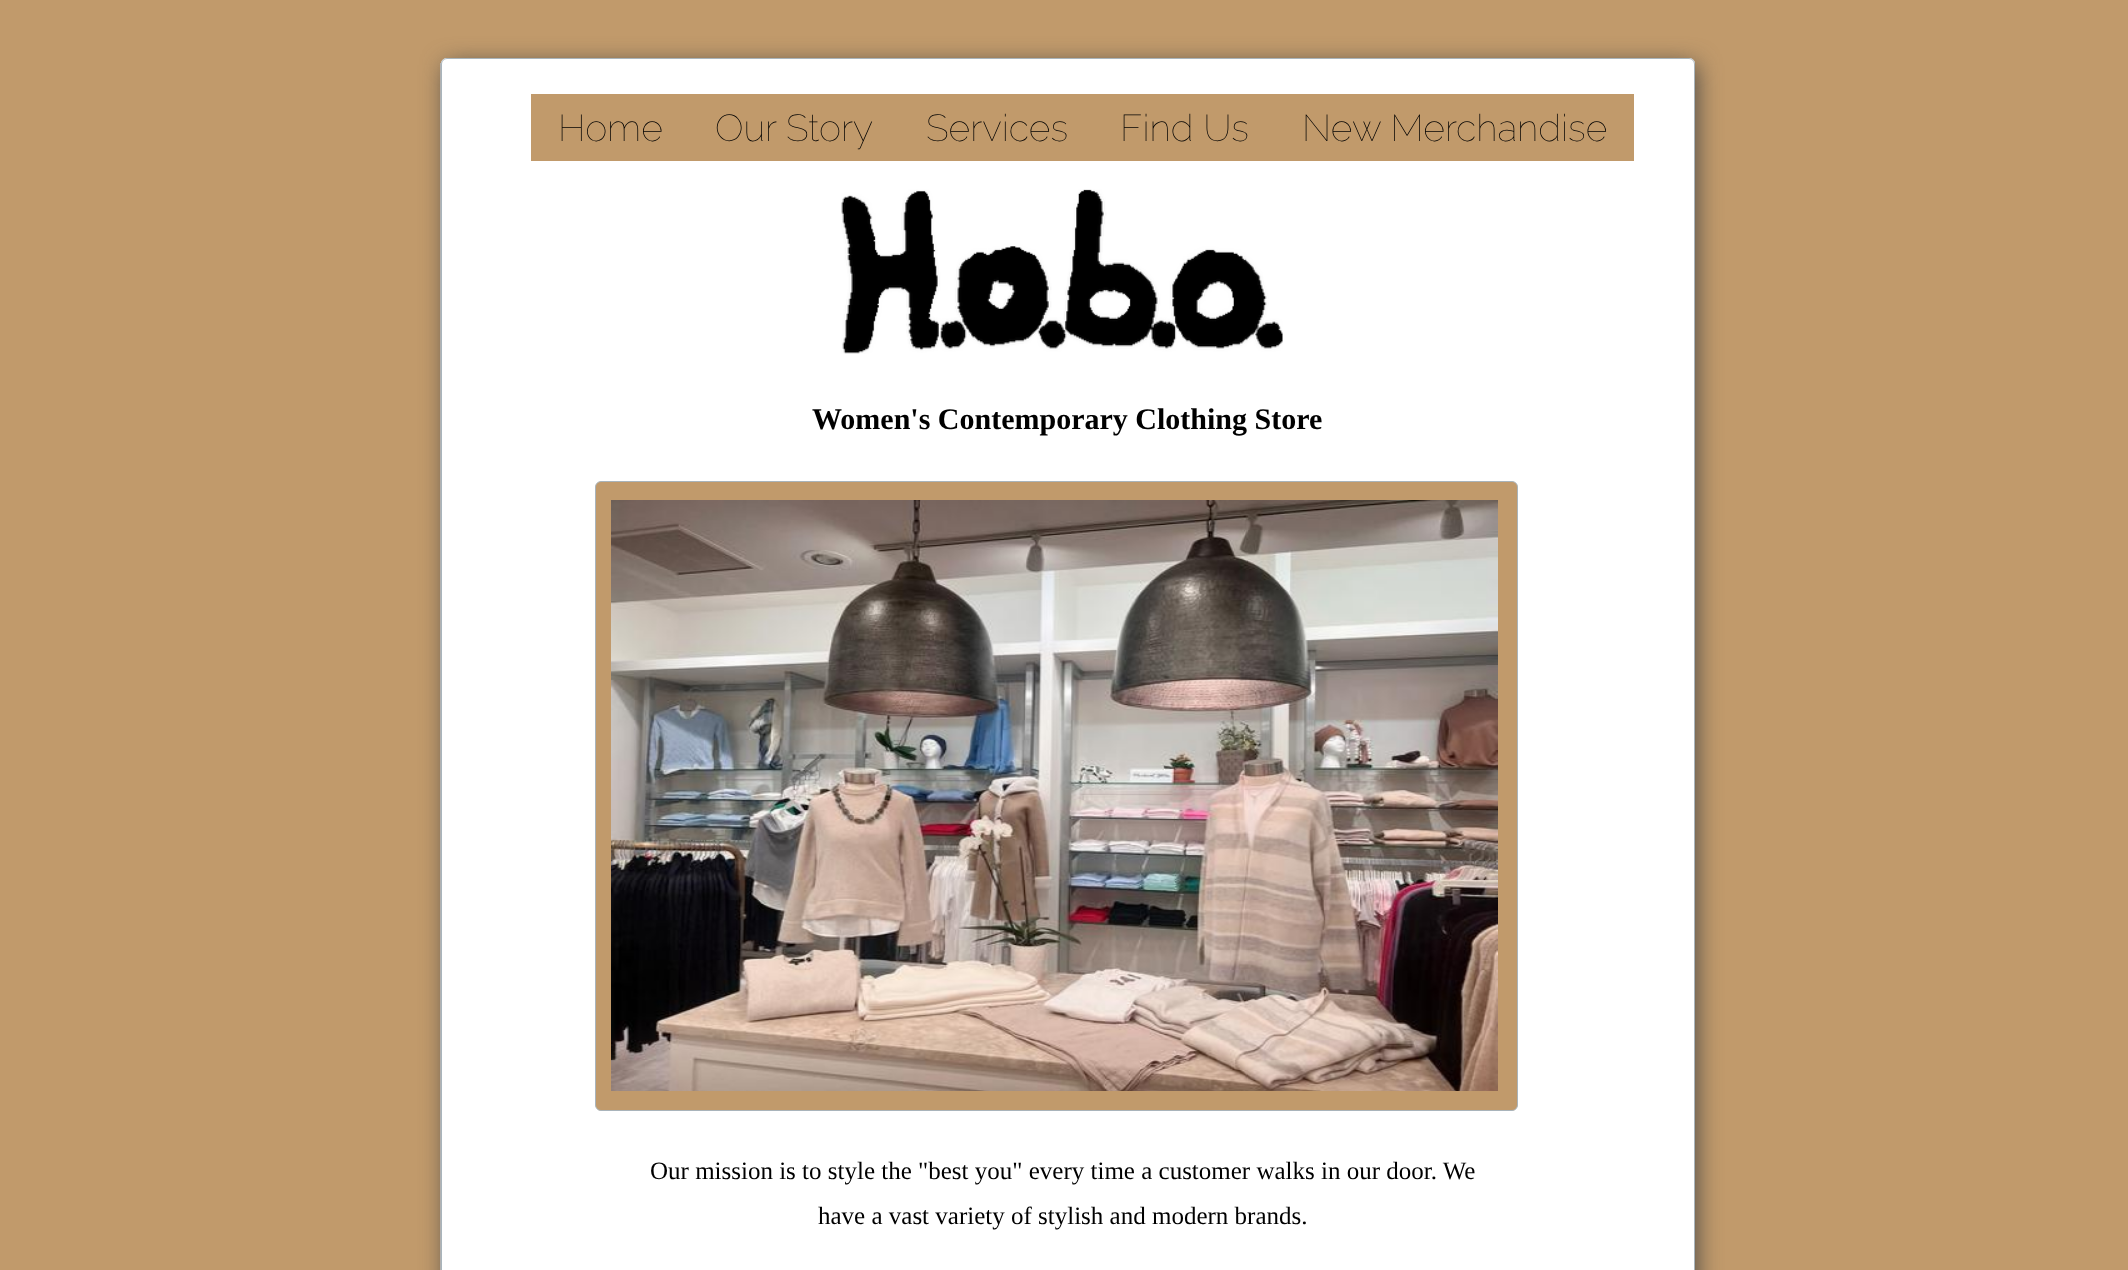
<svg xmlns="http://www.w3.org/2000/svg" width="2128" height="1270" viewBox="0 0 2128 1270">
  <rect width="100%" height="100%" fill="rgb(193,154,107)"/>
  <rect x="446" y="65" width="1250" height="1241" fill="rgb(68,68,68)" filter="blur(12px)"/>
  <rect x="440" y="63" width="2" height="1207" fill="rgb(178,178,178)"/>
  <path d="M447 58H1689C1692.5 58 1695 60.5 1695 64V1270H441V64C441 60.5 443.5 58 447 58Z" fill="rgb(255,255,255)"/>
  <rect x="441.5" y="58.5" width="1253" height="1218" rx="5.5" fill="none" stroke="rgb(169,180,187)"/>
  <rect x="531" y="94" width="1103" height="67" fill="rgb(193,154,107)"/>
  <g font-family="Raleway" font-size="37.5" font-weight="100" fill="rgb(0,0,0)">
    <text x="558" y="141">Home</text>
    <text x="715" y="141">Our Story</text>
    <text x="926" y="141">Services</text>
    <text x="1120" y="141">Find Us</text>
    <text x="1302" y="141">New Merchandise</text>
  </g>
  <image x="841" y="189" width="442" height="165" href="pic1.png"/>
  <text x="812" y="429" font-family="Liberation Serif" font-size="30" font-weight="bold" fill="rgb(0,0,0)">Women's Contemporary Clothing Store</text>
  <rect x="595.5" y="481.5" width="922" height="629" rx="5.5" fill="rgb(193,154,107)" stroke="rgb(169,180,187)"/>
  <image x="611" y="500" width="887" height="591" href="pic2.png"/>
  <g font-family="Liberation Serif" font-size="25" fill="rgb(0,0,0)">
    <text x="650" y="1179">Our mission is to style the "best you" every time a customer walks in our door. We</text>
    <text x="818" y="1224">have a vast variety of stylish and modern brands.</text>
  </g>
</svg>
